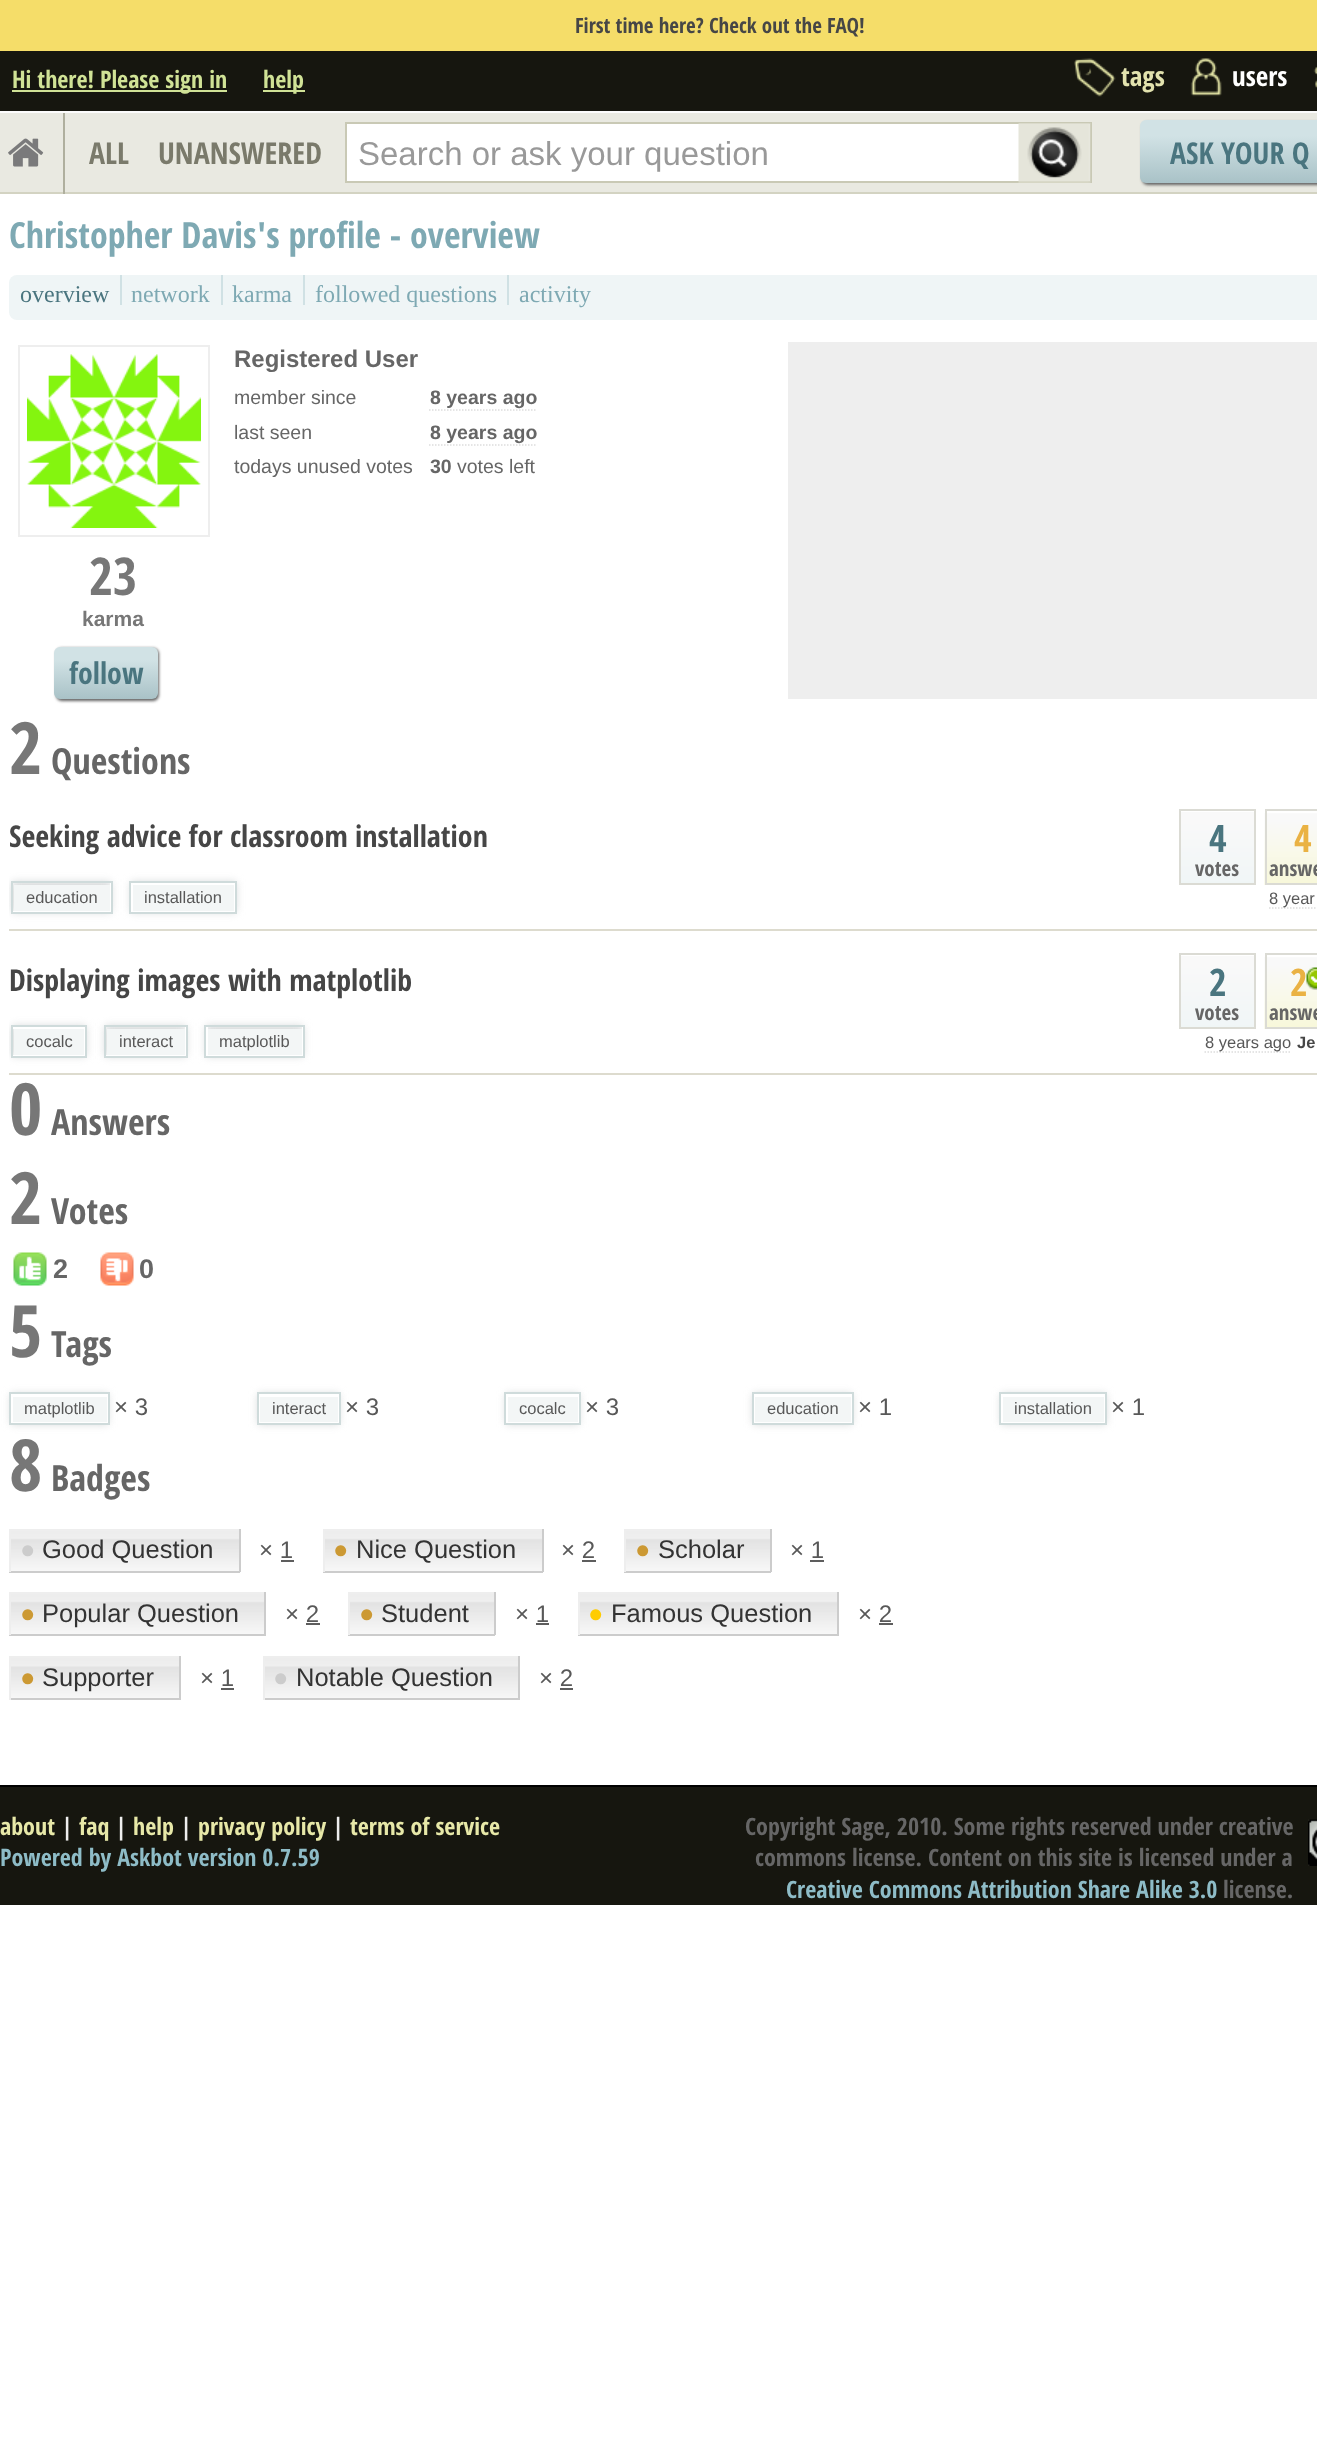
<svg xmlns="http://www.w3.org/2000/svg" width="1317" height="2445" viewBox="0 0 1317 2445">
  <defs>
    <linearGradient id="g1" gradientUnits="userSpaceOnUse" x1="1290" y1="120" x2="1290" y2="183"><stop offset="0" stop-color="rgb(209,226,229)"/><stop offset="0.25" stop-color="rgb(209,226,229)"/><stop offset="1" stop-color="rgb(169,194,199)"/></linearGradient>
    <linearGradient id="g2" gradientUnits="userSpaceOnUse" x1="106" y1="647" x2="106" y2="699"><stop offset="0" stop-color="rgb(209,226,229)"/><stop offset="0.25" stop-color="rgb(209,226,229)"/><stop offset="1" stop-color="rgb(169,194,199)"/></linearGradient>
    <clipPath id="clip1"><rect x="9" y="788" width="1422" height="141"/></clipPath>
    <clipPath id="clip2"><rect x="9" y="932" width="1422" height="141"/></clipPath>
    <clipPath id="clip3"><path d="M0 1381H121V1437H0ZM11 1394H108V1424H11Z" clip-rule="evenodd"/></clipPath>
    <clipPath id="clip4"><path d="M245 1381H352V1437H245ZM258 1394H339V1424H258Z" clip-rule="evenodd"/></clipPath>
    <clipPath id="clip5"><path d="M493 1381H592V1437H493ZM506 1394H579V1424H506Z" clip-rule="evenodd"/></clipPath>
    <clipPath id="clip6"><path d="M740 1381H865V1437H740ZM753 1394H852V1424H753Z" clip-rule="evenodd"/></clipPath>
  </defs>
  <rect width="100%" height="100%" fill="rgb(255,255,255)"/>
  <rect x="0" y="0" width="1317" height="51" fill="rgb(245,221,105)"/>
  <text x="575" y="33" font-family="Open Sans Condensed" font-size="21" font-weight="bold" fill="rgb(70,70,70)">First time here? Check out the FAQ!</text>
  <rect x="0" y="51" width="1317" height="60" fill="rgb(22,22,15)"/>
  <rect x="12" y="90" width="215" height="2" fill="rgb(208,226,150)"/>
  <text x="12" y="88" font-family="Open Sans Condensed" font-size="24" font-weight="bold" fill="rgb(208,226,150)">Hi there! Please sign in</text>
  <rect x="263" y="90" width="42" height="2" fill="rgb(208,226,150)"/>
  <text x="263" y="88" font-family="Open Sans Condensed" font-size="24" font-weight="bold" fill="rgb(208,226,150)">help</text>
  <image x="1074" y="58" width="42" height="39" href="pic1.png"/>
  <text x="1121" y="86" font-family="Open Sans Condensed" font-size="27" font-weight="bold" fill="rgb(226,226,174)">tags</text>
  <image x="1190" y="58" width="32" height="39" href="pic2.png"/>
  <text x="1232" y="86" font-family="Open Sans Condensed" font-size="27" font-weight="bold" fill="rgb(255,255,255)">users</text>
  <image x="1313" y="66" width="4" height="22" href="pic3.png"/>
  <rect x="0" y="113" width="1317" height="79" fill="rgb(233,233,225)"/>
  <rect x="0" y="111" width="1317" height="2" fill="rgb(252,252,252)"/>
  <rect x="0" y="192" width="1317" height="2" fill="rgb(211,211,194)"/>
  <rect x="63" y="113" width="2" height="81" fill="rgb(175,175,158)"/>
  <image x="8" y="138" width="36" height="29" href="pic4.png"/>
  <g font-family="Open Sans Condensed" font-size="30" font-weight="bold" fill="rgb(122,122,107)">
    <text x="89" y="164">ALL</text>
    <text x="158" y="164">UNANSWERED</text>
  </g>
  <rect x="346" y="123" width="745" height="59" fill="rgb(255,255,255)" stroke="rgb(201,201,181)" stroke-width="2"/>
  <text x="358" y="165" font-family="Liberation Sans" font-size="33" fill="rgb(153,153,153)">Search or ask your question</text>
  <image x="1018" y="123" width="73" height="60" href="pic5.png"/>
  <rect x="1142" y="122" width="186" height="63" rx="6" fill="rgb(99,99,99)" filter="blur(1.5px)"/>
  <rect x="1140" y="120" width="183" height="63" rx="6" fill="url(#g1)"/>
  <text x="1170" y="164" font-family="Open Sans Condensed" font-size="30" font-weight="bold" fill="rgb(74,117,127)">ASK YOUR Q</text>
  <text x="9" y="248" font-family="Open Sans Condensed" font-size="36" font-weight="bold" fill="rgb(126,169,179)">Christopher Davis's profile - overview</text>
  <rect x="9" y="275" width="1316" height="45" rx="8" fill="rgb(239,245,246)"/>
  <text x="20" y="302" font-family="Liberation Serif" font-size="24" fill="rgb(74,117,127)">overview</text>
  <rect x="120" y="275" width="2" height="30" fill="rgb(208,225,228)"/>
  <text x="131" y="302" font-family="Liberation Serif" font-size="24" fill="rgb(126,169,179)">network</text>
  <rect x="221" y="275" width="2" height="30" fill="rgb(208,225,228)"/>
  <text x="232" y="302" font-family="Liberation Serif" font-size="24" fill="rgb(126,169,179)">karma</text>
  <rect x="303" y="275" width="2" height="30" fill="rgb(208,225,228)"/>
  <text x="315" y="302" font-family="Liberation Serif" font-size="24" fill="rgb(126,169,179)">followed questions</text>
  <rect x="507" y="275" width="2" height="30" fill="rgb(208,225,228)"/>
  <text x="519" y="302" font-family="Liberation Serif" font-size="24" fill="rgb(126,169,179)">activity</text>
  <text x="234" y="367" font-family="Liberation Sans" font-size="24" font-weight="bold" fill="rgb(102,102,102)">Registered User</text>
  <text x="234" y="404" font-family="Liberation Sans" font-size="19.5" fill="rgb(102,102,102)">member since</text>
  <text x="430" y="404" font-family="Liberation Sans" font-size="19.5" font-weight="bold" fill="rgb(102,102,102)">8 years ago</text>
  <path d="M429 410H537" fill="none" stroke="rgb(221,221,221)" stroke-width="1.5" stroke-dasharray="1.5 1.5"/>
  <text x="234" y="439" font-family="Liberation Sans" font-size="19.5" fill="rgb(102,102,102)">last seen</text>
  <text x="430" y="439" font-family="Liberation Sans" font-size="19.5" font-weight="bold" fill="rgb(102,102,102)">8 years ago</text>
  <path d="M429 445H537" fill="none" stroke="rgb(221,221,221)" stroke-width="1.5" stroke-dasharray="1.5 1.5"/>
  <text x="234" y="473" font-family="Liberation Sans" font-size="19.5" fill="rgb(102,102,102)">todays unused votes</text>
  <text x="430" y="473" font-family="Liberation Sans" font-size="19.5" font-weight="bold" fill="rgb(102,102,102)">30</text>
  <text x="457" y="473" font-family="Liberation Sans" font-size="19.5" fill="rgb(102,102,102)">votes left</text>
  <rect x="788" y="342" width="529" height="357" fill="rgb(238,238,238)"/>
  <rect x="19" y="346" width="190" height="190" fill="none" stroke="rgb(238,238,238)" stroke-width="2"/>
  <image x="27" y="354" width="174" height="174" href="pic6.png"/>
  <text x="89" y="595" font-family="Open Sans Condensed" font-size="52" font-weight="bold" fill="rgb(119,119,119)">23</text>
  <text x="82" y="626" font-family="Liberation Sans" font-size="21" font-weight="bold" fill="rgb(119,119,119)">karma</text>
  <rect x="56" y="648" width="103" height="53" rx="6" fill="rgb(99,99,99)" filter="blur(1.5px)"/>
  <rect x="54" y="647" width="104" height="52" rx="6" fill="url(#g2)"/>
  <text x="69" y="684" font-family="Open Sans Condensed" font-size="30" font-weight="bold" fill="rgb(74,117,127)">follow</text>
  <text x="9" y="774" font-family="Open Sans Condensed" font-size="72" font-weight="bold" fill="rgb(119,119,119)">2</text>
  <text x="51" y="774" font-family="Open Sans Condensed" font-size="36" font-weight="bold" fill="rgb(102,102,102)">Questions</text>
  <rect x="9" y="929" width="1308" height="2" fill="rgb(221,219,206)"/>
  <text x="9" y="847" font-family="Open Sans Condensed" font-size="30" font-weight="bold" fill="rgb(70,70,70)">Seeking advice for classroom installation</text>
  <image x="1181" y="812" width="73" height="71" href="pic7.png"/>
  <rect x="1180" y="810" width="75" height="74" fill="none" stroke="rgb(219,219,212)" stroke-width="2"/>
  <text x="1209" y="852" font-family="Open Sans Condensed" font-size="38" font-weight="bold" fill="rgb(74,117,127)">4</text>
  <text x="1195" y="876" font-family="Open Sans Condensed" font-size="21" font-weight="bold" fill="rgb(102,102,102)">votes</text>
  <image x="1264" y="813" width="53" height="72" href="pic8.png"/>
  <rect x="1266" y="810" width="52" height="74" fill="none" stroke="rgb(219,219,212)" stroke-width="2"/>
  <text x="1294" y="852" font-family="Open Sans Condensed" font-size="38" font-weight="bold" fill="rgb(234,178,67)">4</text>
  <text x="1269" y="876" font-family="Open Sans Condensed" font-size="21" font-weight="bold" fill="rgb(102,102,102)">answe</text>
  <path d="M1269 908H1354.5" fill="none" stroke="rgb(221,221,221)" stroke-width="1.5" stroke-dasharray="1.5 1.5"/>
  <text x="1269" y="904" font-family="Liberation Sans" font-size="16.5" fill="rgb(88,88,88)">8 year</text>
  <g clip-path="url(#clip1)">
    <rect x="12" y="882" width="99" height="30" fill="rgb(211,214,215)" filter="blur(4px)"/>
  </g>
  <rect x="14" y="885" width="96" height="26" fill="rgb(243,246,246)"/>
  <rect x="110" y="882" width="1" height="30" fill="rgb(255,255,255)"/>
  <rect x="12" y="911" width="99" height="1" fill="rgb(255,255,255)"/>
  <rect x="12" y="882" width="100" height="31" fill="none" stroke="rgb(207,219,219)" stroke-width="2"/>
  <text x="26" y="903" font-family="Liberation Sans" font-size="16.5" fill="rgb(88,88,88)">education</text>
  <rect x="131" y="882" width="105" height="30" fill="rgb(211,214,215)" filter="blur(4px)"/>
  <rect x="133" y="885" width="101" height="26" fill="rgb(243,246,246)"/>
  <rect x="131" y="883" width="105" height="2" fill="rgb(255,255,255)"/>
  <rect x="234" y="882" width="1" height="30" fill="rgb(255,255,255)"/>
  <rect x="131" y="911" width="105" height="1" fill="rgb(255,255,255)"/>
  <rect x="131" y="882" width="2" height="30" fill="rgb(255,255,255)"/>
  <rect x="130" y="882" width="106" height="31" fill="none" stroke="rgb(207,219,219)" stroke-width="2"/>
  <text x="144" y="903" font-family="Liberation Sans" font-size="16.5" fill="rgb(88,88,88)">installation</text>
  <rect x="9" y="1073" width="1308" height="2" fill="rgb(221,219,206)"/>
  <text x="9" y="991" font-family="Open Sans Condensed" font-size="30" font-weight="bold" fill="rgb(70,70,70)">Displaying images with matplotlib</text>
  <image x="1181" y="956" width="73" height="71" href="pic7.png"/>
  <rect x="1180" y="954" width="75" height="74" fill="none" stroke="rgb(219,219,212)" stroke-width="2"/>
  <text x="1209" y="996" font-family="Open Sans Condensed" font-size="38" font-weight="bold" fill="rgb(74,117,127)">2</text>
  <text x="1195" y="1020" font-family="Open Sans Condensed" font-size="21" font-weight="bold" fill="rgb(102,102,102)">votes</text>
  <image x="1264" y="957" width="53" height="72" href="pic8.png"/>
  <rect x="1266" y="954" width="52" height="74" fill="none" stroke="rgb(219,219,212)" stroke-width="2"/>
  <image x="1306" y="967" width="11" height="23" href="pic9.png"/>
  <text x="1290" y="996" font-family="Open Sans Condensed" font-size="38" font-weight="bold" fill="rgb(234,178,67)">2</text>
  <text x="1269" y="1020" font-family="Open Sans Condensed" font-size="21" font-weight="bold" fill="rgb(102,102,102)">answe</text>
  <path d="M1204.5 1052H1291.5" fill="none" stroke="rgb(221,221,221)" stroke-width="1.5" stroke-dasharray="1.5 1.5"/>
  <text x="1205" y="1048" font-family="Liberation Sans" font-size="16.5" fill="rgb(88,88,88)">8 years ago</text>
  <text x="1297" y="1048" font-family="Liberation Sans" font-size="16.5" font-weight="bold" fill="rgb(70,70,70)">Je</text>
  <g clip-path="url(#clip2)">
    <rect x="12" y="1026" width="74" height="30" fill="rgb(211,214,215)" filter="blur(4px)"/>
  </g>
  <rect x="14" y="1029" width="70" height="26" fill="rgb(243,246,246)"/>
  <rect x="12" y="1027" width="74" height="2" fill="rgb(255,255,255)"/>
  <rect x="84" y="1026" width="1" height="30" fill="rgb(255,255,255)"/>
  <rect x="12" y="1055" width="74" height="1" fill="rgb(255,255,255)"/>
  <rect x="12" y="1026" width="74" height="31" fill="none" stroke="rgb(207,219,219)" stroke-width="2"/>
  <text x="26" y="1047" font-family="Liberation Sans" font-size="16.5" fill="rgb(88,88,88)">cocalc</text>
  <rect x="105" y="1026" width="81" height="30" fill="rgb(211,214,215)" filter="blur(4px)"/>
  <rect x="107" y="1029" width="78" height="26" fill="rgb(243,246,246)"/>
  <rect x="185" y="1026" width="1" height="30" fill="rgb(255,255,255)"/>
  <rect x="105" y="1055" width="81" height="1" fill="rgb(255,255,255)"/>
  <rect x="105" y="1026" width="82" height="31" fill="none" stroke="rgb(207,219,219)" stroke-width="2"/>
  <text x="119" y="1047" font-family="Liberation Sans" font-size="16.5" fill="rgb(88,88,88)">interact</text>
  <rect x="206" y="1026" width="97" height="30" fill="rgb(211,214,215)" filter="blur(4px)"/>
  <rect x="208" y="1029" width="94" height="26" fill="rgb(243,246,246)"/>
  <rect x="302" y="1026" width="1" height="30" fill="rgb(255,255,255)"/>
  <rect x="206" y="1055" width="97" height="1" fill="rgb(255,255,255)"/>
  <rect x="206" y="1026" width="2" height="30" fill="rgb(255,255,255)"/>
  <rect x="205" y="1026" width="99" height="31" fill="none" stroke="rgb(207,219,219)" stroke-width="2"/>
  <text x="219" y="1047" font-family="Liberation Sans" font-size="16.5" fill="rgb(88,88,88)">matplotlib</text>
  <text x="9" y="1135" font-family="Open Sans Condensed" font-size="72" font-weight="bold" fill="rgb(119,119,119)">0</text>
  <text x="51" y="1135" font-family="Open Sans Condensed" font-size="36" font-weight="bold" fill="rgb(102,102,102)">Answers</text>
  <text x="9" y="1224" font-family="Open Sans Condensed" font-size="72" font-weight="bold" fill="rgb(119,119,119)">2</text>
  <text x="51" y="1224" font-family="Open Sans Condensed" font-size="36" font-weight="bold" fill="rgb(102,102,102)">Votes</text>
  <image x="13" y="1252" width="34" height="34" href="pic10.png"/>
  <text x="53" y="1278" font-family="Liberation Sans" font-size="27" font-weight="bold" fill="rgb(102,102,102)">2</text>
  <image x="100" y="1252" width="34" height="34" href="pic11.png"/>
  <text x="139" y="1278" font-family="Liberation Sans" font-size="27" font-weight="bold" fill="rgb(102,102,102)">0</text>
  <text x="9" y="1357" font-family="Open Sans Condensed" font-size="72" font-weight="bold" fill="rgb(119,119,119)">5</text>
  <text x="51" y="1357" font-family="Open Sans Condensed" font-size="36" font-weight="bold" fill="rgb(102,102,102)">Tags</text>
  <g clip-path="url(#clip3)">
    <rect x="11" y="1394" width="97" height="30" fill="rgb(211,214,215)" filter="blur(4px)"/>
  </g>
  <rect x="13" y="1397" width="94" height="25" fill="rgb(243,246,246)"/>
  <rect x="107" y="1423" width="1" height="1" fill="rgb(255,255,255)"/>
  <rect x="11" y="1423" width="2" height="1" fill="rgb(255,255,255)"/>
  <rect x="10" y="1393" width="99" height="31" fill="none" stroke="rgb(207,219,219)" stroke-width="2"/>
  <text x="24" y="1414" font-family="Liberation Sans" font-size="16.5" fill="rgb(88,88,88)">matplotlib</text>
  <text x="114" y="1415" font-family="Liberation Sans" font-size="24" fill="rgb(88,88,88)">× 3</text>
  <g clip-path="url(#clip4)">
    <rect x="258" y="1394" width="81" height="30" fill="rgb(211,214,215)" filter="blur(4px)"/>
  </g>
  <rect x="260" y="1397" width="78" height="25" fill="rgb(243,246,246)"/>
  <rect x="338" y="1423" width="1" height="1" fill="rgb(255,255,255)"/>
  <rect x="258" y="1393" width="82" height="31" fill="none" stroke="rgb(207,219,219)" stroke-width="2"/>
  <text x="272" y="1414" font-family="Liberation Sans" font-size="16.5" fill="rgb(88,88,88)">interact</text>
  <text x="345" y="1415" font-family="Liberation Sans" font-size="24" fill="rgb(88,88,88)">× 3</text>
  <g clip-path="url(#clip5)">
    <rect x="506" y="1394" width="73" height="30" fill="rgb(211,214,215)" filter="blur(4px)"/>
  </g>
  <rect x="508" y="1397" width="70" height="25" fill="rgb(243,246,246)"/>
  <rect x="578" y="1423" width="1" height="1" fill="rgb(255,255,255)"/>
  <rect x="506" y="1423" width="2" height="1" fill="rgb(255,255,255)"/>
  <rect x="505" y="1393" width="75" height="31" fill="none" stroke="rgb(207,219,219)" stroke-width="2"/>
  <text x="519" y="1414" font-family="Liberation Sans" font-size="16.5" fill="rgb(88,88,88)">cocalc</text>
  <text x="585" y="1415" font-family="Liberation Sans" font-size="24" fill="rgb(88,88,88)">× 3</text>
  <g clip-path="url(#clip6)">
    <rect x="753" y="1394" width="99" height="30" fill="rgb(211,214,215)" filter="blur(4px)"/>
  </g>
  <rect x="755" y="1397" width="96" height="25" fill="rgb(243,246,246)"/>
  <rect x="851" y="1423" width="1" height="1" fill="rgb(255,255,255)"/>
  <rect x="753" y="1393" width="100" height="31" fill="none" stroke="rgb(207,219,219)" stroke-width="2"/>
  <text x="767" y="1414" font-family="Liberation Sans" font-size="16.5" fill="rgb(88,88,88)">education</text>
  <text x="858" y="1415" font-family="Liberation Sans" font-size="24" fill="rgb(88,88,88)">× 1</text>
  <rect x="1001" y="1394" width="105" height="30" fill="rgb(211,214,215)" filter="blur(4px)"/>
  <rect x="1003" y="1397" width="101" height="25" fill="rgb(243,246,246)"/>
  <rect x="1001" y="1394" width="105" height="3" fill="rgb(255,255,255)"/>
  <rect x="1104" y="1394" width="1" height="30" fill="rgb(255,255,255)"/>
  <rect x="1001" y="1422" width="105" height="1" fill="rgb(255,255,255)"/>
  <rect x="1001" y="1394" width="2" height="30" fill="rgb(255,255,255)"/>
  <rect x="1000" y="1393" width="106" height="31" fill="none" stroke="rgb(207,219,219)" stroke-width="2"/>
  <text x="1014" y="1414" font-family="Liberation Sans" font-size="16.5" fill="rgb(88,88,88)">installation</text>
  <text x="1111" y="1415" font-family="Liberation Sans" font-size="24" fill="rgb(88,88,88)">× 1</text>
  <text x="9" y="1491" font-family="Open Sans Condensed" font-size="72" font-weight="bold" fill="rgb(119,119,119)">8</text>
  <text x="51" y="1491" font-family="Open Sans Condensed" font-size="36" font-weight="bold" fill="rgb(102,102,102)">Badges</text>
  <image x="11" y="1531" width="228" height="40" href="pic12.png"/>
  <image x="325" y="1531" width="217" height="40" href="pic13.png"/>
  <image x="626" y="1531" width="144" height="40" href="pic14.png"/>
  <text x="20" y="1558" font-family="Liberation Sans" font-size="25.5" fill="rgb(204,204,204)">●</text>
  <rect x="9" y="1529" width="231" height="2" fill="rgb(238,238,238)"/>
  <rect x="9" y="1571" width="26" height="2" fill="rgb(204,204,204)"/>
  <rect x="9" y="1529" width="2" height="43" fill="rgb(238,238,238)"/>
  <text x="42" y="1558" font-family="Liberation Sans" font-size="25.5" fill="rgb(51,51,51)">Good Question</text>
  <rect x="239" y="1529" width="2" height="43" fill="rgb(204,204,204)"/>
  <rect x="35" y="1571" width="205" height="2" fill="rgb(204,204,204)"/>
  <text x="259" y="1558" font-family="Liberation Sans" font-size="24" fill="rgb(88,88,88)">× 1</text>
  <rect x="281" y="1560" width="13" height="2" fill="rgb(93,93,93)"/>
  <text x="333" y="1558" font-family="Liberation Sans" font-size="25.5" fill="rgb(204,153,51)">●</text>
  <rect x="323" y="1529" width="220" height="2" fill="rgb(238,238,238)"/>
  <rect x="323" y="1571" width="25" height="2" fill="rgb(204,204,204)"/>
  <rect x="323" y="1529" width="2" height="43" fill="rgb(238,238,238)"/>
  <text x="356" y="1558" font-family="Liberation Sans" font-size="25.5" fill="rgb(51,51,51)">Nice Question</text>
  <rect x="542" y="1529" width="2" height="43" fill="rgb(204,204,204)"/>
  <rect x="348" y="1571" width="195" height="2" fill="rgb(204,204,204)"/>
  <text x="561" y="1558" font-family="Liberation Sans" font-size="24" fill="rgb(88,88,88)">× 2</text>
  <rect x="582" y="1560" width="14" height="2" fill="rgb(93,93,93)"/>
  <text x="635" y="1558" font-family="Liberation Sans" font-size="25.5" fill="rgb(204,153,51)">●</text>
  <rect x="624" y="1571" width="27" height="2" fill="rgb(204,204,204)"/>
  <rect x="624" y="1529" width="147" height="2" fill="rgb(238,238,238)"/>
  <rect x="624" y="1529" width="2" height="43" fill="rgb(238,238,238)"/>
  <rect x="770" y="1529" width="2" height="43" fill="rgb(204,204,204)"/>
  <rect x="651" y="1571" width="120" height="2" fill="rgb(204,204,204)"/>
  <text x="658" y="1558" font-family="Liberation Sans" font-size="25.5" fill="rgb(51,51,51)">Scholar</text>
  <text x="790" y="1558" font-family="Liberation Sans" font-size="24" fill="rgb(88,88,88)">× 1</text>
  <rect x="810" y="1560" width="14" height="2" fill="rgb(93,93,93)"/>
  <image x="11" y="1594" width="253" height="40" href="pic15.png"/>
  <image x="350" y="1594" width="144" height="40" href="pic14.png"/>
  <image x="580" y="1594" width="257" height="40" href="pic16.png"/>
  <text x="20" y="1622" font-family="Liberation Sans" font-size="25.5" fill="rgb(204,153,51)">●</text>
  <rect x="9" y="1592" width="257" height="2" fill="rgb(238,238,238)"/>
  <rect x="9" y="1634" width="26" height="2" fill="rgb(204,204,204)"/>
  <rect x="9" y="1592" width="2" height="43" fill="rgb(238,238,238)"/>
  <text x="42" y="1622" font-family="Liberation Sans" font-size="25.5" fill="rgb(51,51,51)">Popular Question</text>
  <rect x="264" y="1592" width="2" height="43" fill="rgb(204,204,204)"/>
  <rect x="35" y="1634" width="231" height="2" fill="rgb(204,204,204)"/>
  <text x="285" y="1622" font-family="Liberation Sans" font-size="24" fill="rgb(88,88,88)">× 2</text>
  <rect x="306" y="1623" width="14" height="2" fill="rgb(93,93,93)"/>
  <text x="359" y="1622" font-family="Liberation Sans" font-size="25.5" fill="rgb(204,153,51)">●</text>
  <rect x="348" y="1634" width="26" height="2" fill="rgb(204,204,204)"/>
  <rect x="348" y="1592" width="147" height="2" fill="rgb(238,238,238)"/>
  <rect x="348" y="1592" width="2" height="43" fill="rgb(238,238,238)"/>
  <rect x="494" y="1592" width="2" height="43" fill="rgb(204,204,204)"/>
  <rect x="374" y="1634" width="121" height="2" fill="rgb(204,204,204)"/>
  <text x="381" y="1622" font-family="Liberation Sans" font-size="25.5" fill="rgb(51,51,51)">Student</text>
  <text x="515" y="1622" font-family="Liberation Sans" font-size="24" fill="rgb(88,88,88)">× 1</text>
  <rect x="536" y="1623" width="13" height="2" fill="rgb(93,93,93)"/>
  <text x="588" y="1622" font-family="Liberation Sans" font-size="25.5" fill="rgb(255,204,0)">●</text>
  <rect x="578" y="1592" width="261" height="2" fill="rgb(238,238,238)"/>
  <rect x="578" y="1634" width="27" height="2" fill="rgb(204,204,204)"/>
  <rect x="578" y="1592" width="2" height="43" fill="rgb(238,238,238)"/>
  <text x="611" y="1622" font-family="Liberation Sans" font-size="25.5" fill="rgb(51,51,51)">Famous Question</text>
  <rect x="837" y="1592" width="2" height="43" fill="rgb(204,204,204)"/>
  <rect x="605" y="1634" width="234" height="2" fill="rgb(204,204,204)"/>
  <text x="858" y="1622" font-family="Liberation Sans" font-size="24" fill="rgb(88,88,88)">× 2</text>
  <rect x="879" y="1623" width="14" height="2" fill="rgb(93,93,93)"/>
  <image x="11" y="1658" width="168" height="40" href="pic17.png"/>
  <image x="265" y="1658" width="253" height="40" href="pic18.png"/>
  <text x="20" y="1686" font-family="Liberation Sans" font-size="25.5" fill="rgb(204,153,51)">●</text>
  <rect x="9" y="1656" width="171" height="2" fill="rgb(238,238,238)"/>
  <rect x="9" y="1698" width="26" height="2" fill="rgb(204,204,204)"/>
  <rect x="9" y="1656" width="2" height="44" fill="rgb(238,238,238)"/>
  <text x="42" y="1686" font-family="Liberation Sans" font-size="25.5" fill="rgb(51,51,51)">Supporter</text>
  <rect x="179" y="1656" width="2" height="44" fill="rgb(204,204,204)"/>
  <rect x="35" y="1698" width="145" height="2" fill="rgb(204,204,204)"/>
  <text x="200" y="1686" font-family="Liberation Sans" font-size="24" fill="rgb(88,88,88)">× 1</text>
  <rect x="221" y="1688" width="13" height="2" fill="rgb(93,93,93)"/>
  <text x="273" y="1686" font-family="Liberation Sans" font-size="25.5" fill="rgb(204,204,204)">●</text>
  <rect x="263" y="1656" width="256" height="2" fill="rgb(238,238,238)"/>
  <rect x="263" y="1698" width="27" height="2" fill="rgb(204,204,204)"/>
  <rect x="263" y="1656" width="2" height="44" fill="rgb(238,238,238)"/>
  <text x="296" y="1686" font-family="Liberation Sans" font-size="25.5" fill="rgb(51,51,51)">Notable Question</text>
  <rect x="518" y="1656" width="2" height="44" fill="rgb(204,204,204)"/>
  <rect x="290" y="1698" width="229" height="2" fill="rgb(204,204,204)"/>
  <text x="539" y="1686" font-family="Liberation Sans" font-size="24" fill="rgb(88,88,88)">× 2</text>
  <rect x="560" y="1688" width="13" height="2" fill="rgb(93,93,93)"/>
  <rect x="0" y="1787" width="1317" height="118" fill="rgb(22,22,15)"/>
  <rect x="0" y="1785" width="1317" height="2" fill="rgb(0,0,0)"/>
  <text x="0" y="1835" font-family="Open Sans Condensed" font-size="24" font-weight="bold" fill="rgb(231,232,168)">about</text>
  <text x="61" y="1835" font-family="Open Sans Condensed" font-size="24" font-weight="bold" fill="rgb(238,238,238)">|</text>
  <text x="79" y="1835" font-family="Open Sans Condensed" font-size="24" font-weight="bold" fill="rgb(231,232,168)">faq</text>
  <text x="115" y="1835" font-family="Open Sans Condensed" font-size="24" font-weight="bold" fill="rgb(238,238,238)">|</text>
  <text x="133" y="1835" font-family="Open Sans Condensed" font-size="24" font-weight="bold" fill="rgb(231,232,168)">help</text>
  <text x="180" y="1835" font-family="Open Sans Condensed" font-size="24" font-weight="bold" fill="rgb(238,238,238)">|</text>
  <text x="198" y="1835" font-family="Open Sans Condensed" font-size="24" font-weight="bold" fill="rgb(231,232,168)">privacy policy</text>
  <text x="332" y="1835" font-family="Open Sans Condensed" font-size="24" font-weight="bold" fill="rgb(238,238,238)">|</text>
  <text x="350" y="1835" font-family="Open Sans Condensed" font-size="24" font-weight="bold" fill="rgb(231,232,168)">terms of service</text>
  <text x="745" y="1835" font-family="Open Sans Condensed" font-size="24" font-weight="bold" fill="rgb(102,102,102)">Copyright Sage, 2010. Some rights reserved under creative</text>
  <image x="1308" y="1819" width="9" height="47" href="pic19.png"/>
  <text x="755" y="1866" font-family="Open Sans Condensed" font-size="24" font-weight="bold" fill="rgb(102,102,102)">commons license. Content on this site is licensed under a</text>
  <text x="786" y="1898" font-family="Open Sans Condensed" font-size="24" font-weight="bold" fill="rgb(142,188,199)">Creative Commons Attribution Share Alike 3.0</text>
  <text x="1223" y="1898" font-family="Open Sans Condensed" font-size="24" font-weight="bold" fill="rgb(102,102,102)">license.</text>
  <text x="0" y="1866" font-family="Open Sans Condensed" font-size="24" font-weight="bold" fill="rgb(142,188,199)">Powered by Askbot version 0.7.59</text>
</svg>
